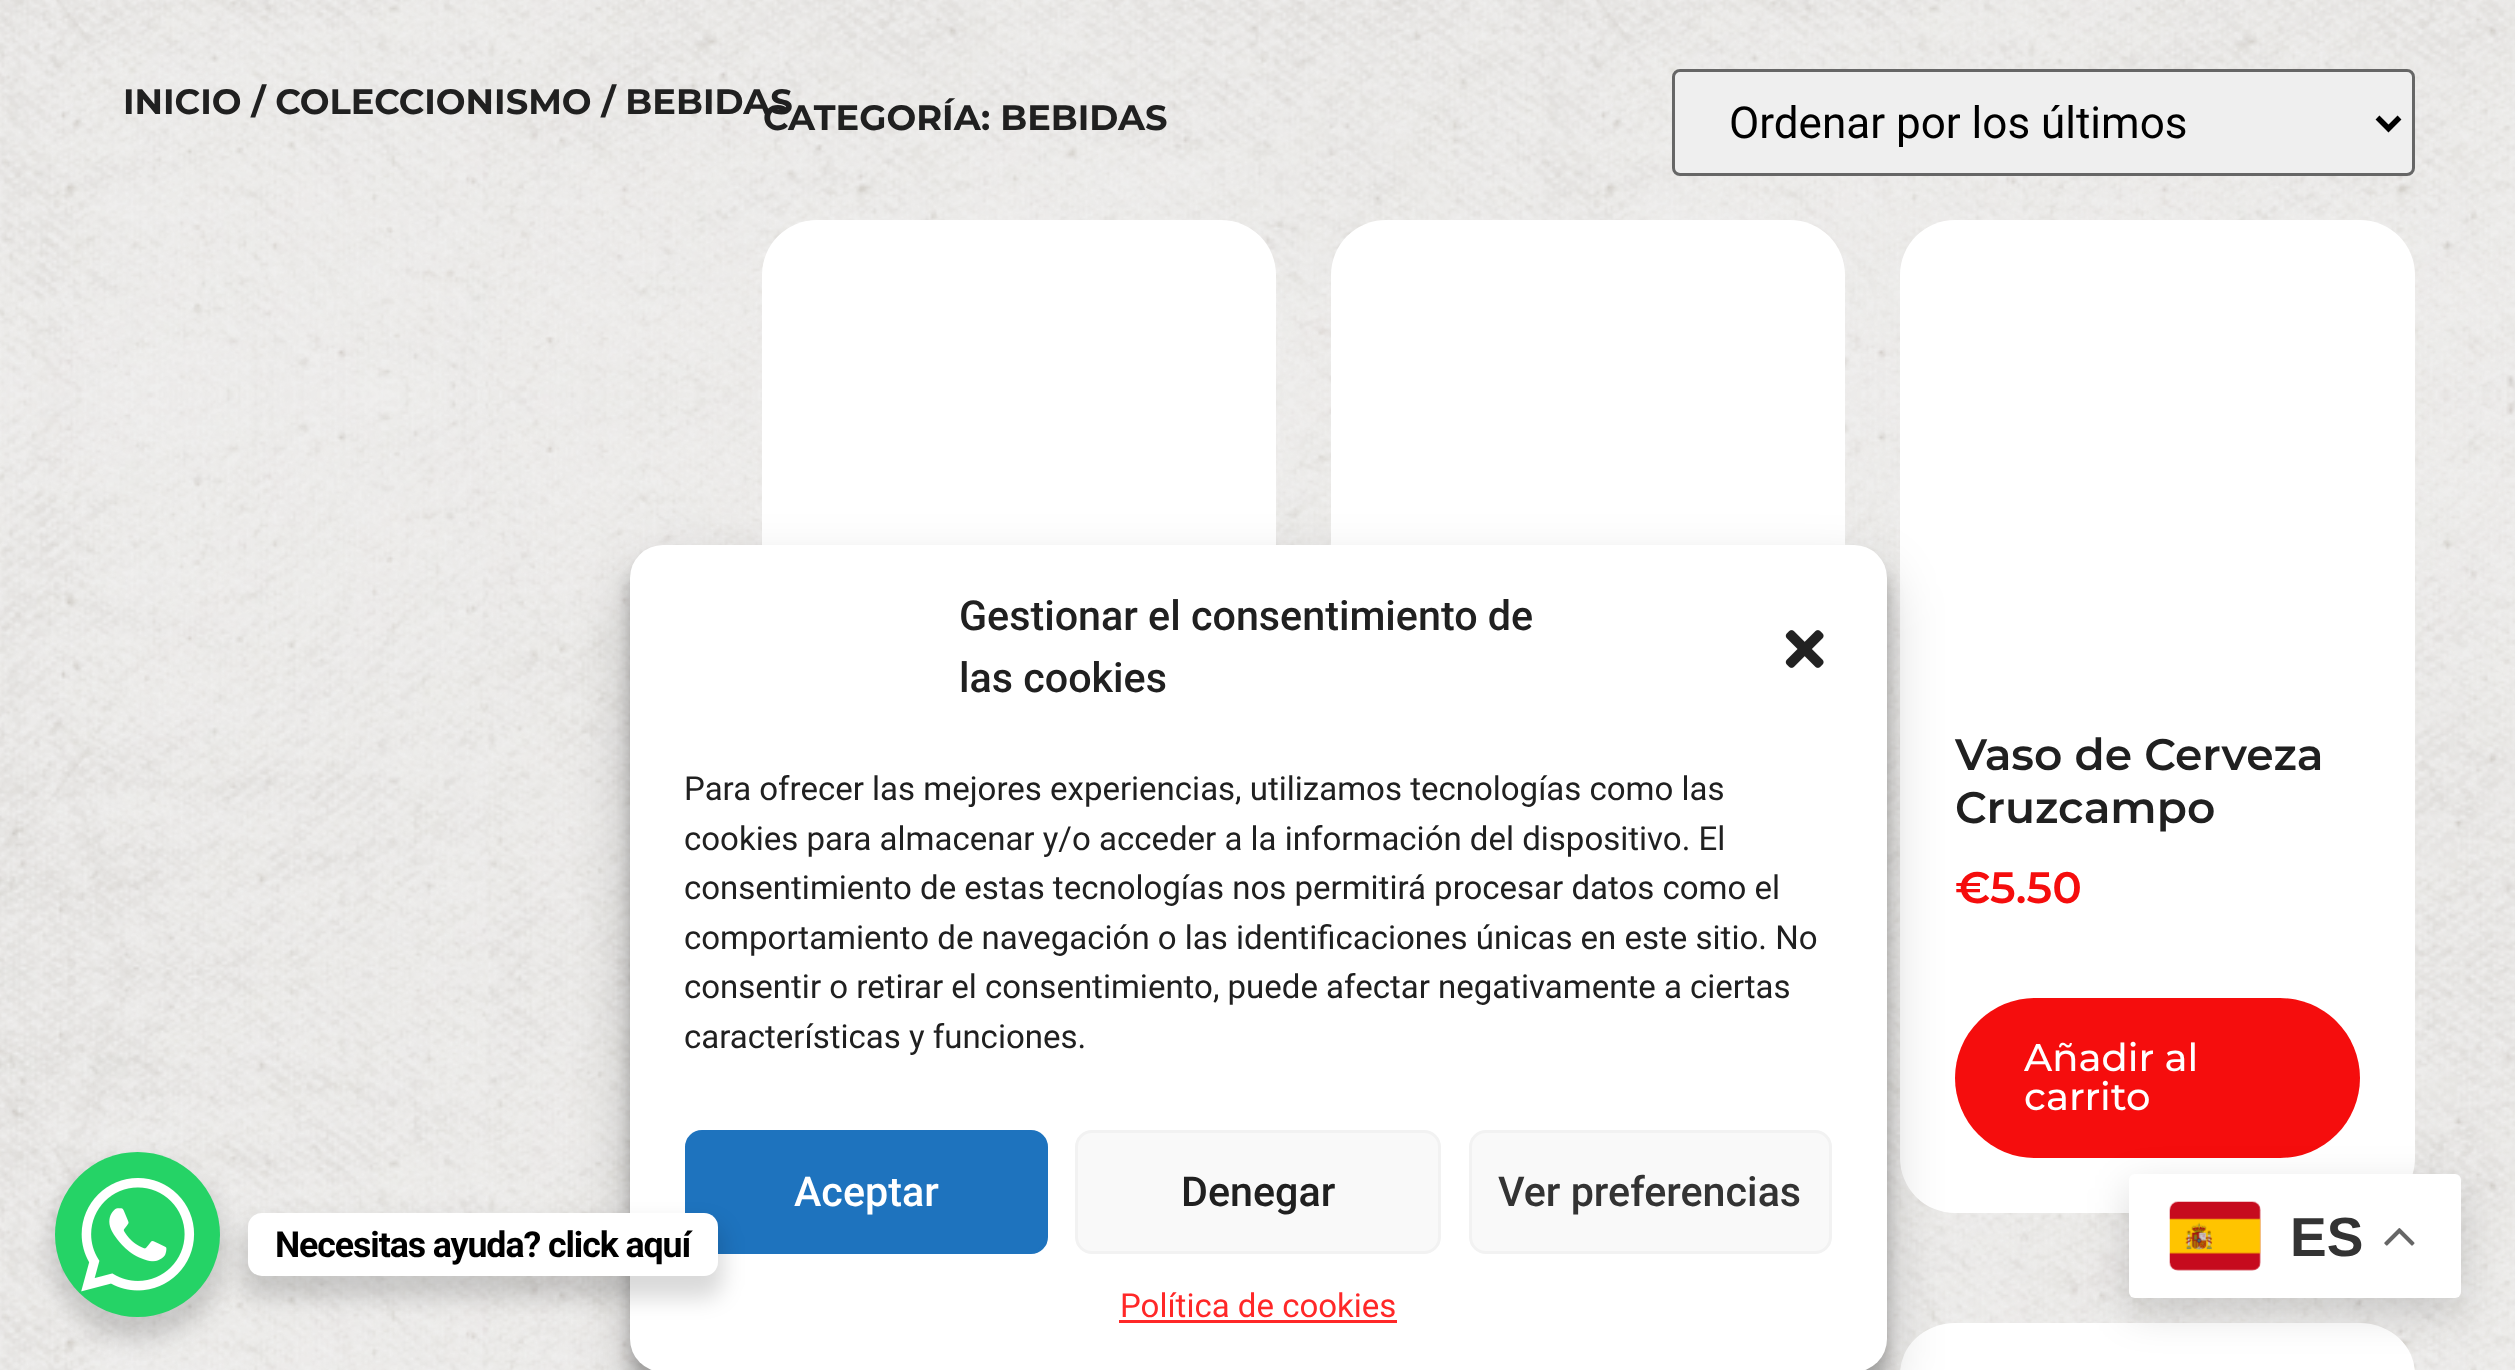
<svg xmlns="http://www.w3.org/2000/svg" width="2515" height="1370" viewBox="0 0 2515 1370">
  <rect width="100%" height="100%" fill="rgb(250,250,250)"/>
  <image x="0" y="0" width="2515" height="1370" href="pic1.png"/>
  <g font-family="Montserrat" font-size="35.25" font-weight="bold" fill="rgb(32,32,32)">
    <text x="123" y="114">INICIO / COLECCIONISMO / BEBIDAS</text>
    <text x="763" y="130">CATEGORÍA: BEBIDAS</text>
  </g>
  <rect x="1673.5" y="70.5" width="740" height="104" rx="6.5" fill="rgb(239,239,239)" stroke="rgb(102,102,102)" stroke-width="3"/>
  <path d="M2377.5 117.5L2388.5 128.5L2399.5 117.5" fill="none" stroke="rgb(0,0,0)" stroke-width="5.5"/>
  <text x="1729" y="138" font-family="Roboto" font-size="44" fill="rgb(0,0,0)">Ordenar por los últimos</text>
  <rect x="762" y="220" width="514" height="993" rx="55" fill="rgb(255,255,255)"/>
  <rect x="1331" y="220" width="514" height="993" rx="55" fill="rgb(255,255,255)"/>
  <rect x="1900" y="220" width="515" height="993" rx="55" fill="rgb(255,255,255)"/>
  <g font-family="Montserrat" font-size="44" font-weight="600" fill="rgb(32,32,32)">
    <text>
      <tspan x="1955" y="770">Vaso de Cerveza</tspan>
      <tspan x="1955" y="823">Cruzcampo</tspan>
    </text>
  </g>
  <g font-family="Montserrat" font-size="44" font-weight="600" fill="rgb(245,13,13)">
    <text x="1955" y="903">€</text>
    <text x="1990" y="903">5.50</text>
  </g>
  <rect x="1955" y="998" width="405" height="160" rx="80" fill="rgb(245,13,13)"/>
  <g font-family="Montserrat" font-size="38.5" font-weight="500" fill="rgb(255,255,255)">
    <text>
      <tspan x="2024" y="1071">Añadir al</tspan>
      <tspan x="2024" y="1110">carrito</tspan>
    </text>
  </g>
  <rect x="1900" y="1323" width="515" height="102" rx="55" fill="rgb(255,255,255)"/>
  <rect x="50" y="1163" width="176" height="176" rx="88" fill="rgba(0,0,0,0.15)" filter="blur(11px)"/>
  <circle cx="137.5" cy="1234.5" r="82.5" fill="rgb(37,211,102)"/>
  <image x="81" y="1178" width="114" height="114" href="pic2.png"/>
  <rect x="630" y="561" width="1257" height="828" rx="33" fill="rgba(0,0,0,0.23)" filter="blur(8px)"/>
  <rect x="630" y="572" width="1257" height="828" rx="33" fill="rgba(0,0,0,0.19)" filter="blur(27.5px)"/>
  <rect x="630" y="545" width="1257" height="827" rx="33" fill="rgb(255,255,255)"/>
  <rect x="686.5" y="1131.5" width="360" height="121" rx="15.5" fill="rgb(30,115,190)" stroke="rgb(30,115,190)" stroke-width="3"/>
  <rect x="242" y="1224" width="481" height="74" rx="19" fill="rgba(0,0,0,0.15)" filter="blur(11px)"/>
  <rect x="248" y="1213" width="470" height="63" rx="14" fill="rgb(255,255,255)"/>
  <text x="275" y="1257" font-family="Roboto" font-size="35.75" font-weight="bold" letter-spacing="-1.1" fill="rgb(0,0,0)">Necesitas ayuda? click aquí</text>
  <g font-family="Roboto" font-size="41.25" font-weight="500" fill="rgb(32,32,32)">
    <text>
      <tspan x="959" y="630">Gestionar el consentimiento de</tspan>
      <tspan x="959" y="692">las cookies</tspan>
    </text>
  </g>
  <image x="1785" y="630" width="39" height="38" href="pic3.png"/>
  <g font-family="Roboto" font-size="33" fill="rgb(32,32,32)">
    <text>
      <tspan x="684" y="800">Para ofrecer las mejores experiencias, utilizamos tecnologías como las</tspan>
      <tspan x="684" y="850">cookies para almacenar y/o acceder a la información del dispositivo. El</tspan>
      <tspan x="684" y="899">consentimiento de estas tecnologías nos permitirá procesar datos como el</tspan>
      <tspan x="684" y="949">comportamiento de navegación o las identificaciones únicas en este sitio. No</tspan>
      <tspan x="684" y="998">consentir o retirar el consentimiento, puede afectar negativamente a ciertas</tspan>
      <tspan x="684" y="1048">características y funciones.</tspan>
    </text>
  </g>
  <text x="794" y="1206" font-family="Roboto" font-size="41.25" font-weight="500" fill="rgb(255,255,255)">Aceptar</text>
  <rect x="1076.5" y="1131.5" width="363" height="121" rx="15.5" fill="rgb(249,249,249)" stroke="rgb(242,242,242)" stroke-width="3"/>
  <text x="1181" y="1206" font-family="Roboto" font-size="41.25" font-weight="500" fill="rgb(32,32,32)">Denegar</text>
  <rect x="1470.5" y="1131.5" width="360" height="121" rx="15.5" fill="rgb(249,249,249)" stroke="rgb(242,242,242)" stroke-width="3"/>
  <text x="1498" y="1206" font-family="Roboto" font-size="41.25" font-weight="500" fill="rgb(51,51,51)">Ver preferencias</text>
  <text x="1120" y="1317" font-family="Roboto" font-size="33" fill="rgb(255,40,40)">Política de cookies</text>
  <rect x="1119" y="1320" width="278" height="3" fill="rgb(255,40,40)"/>
  <rect x="2129" y="1188" width="332" height="124" rx="6" fill="rgba(0,0,0,0.15)" filter="blur(20.5px)"/>
  <rect x="2129" y="1174" width="332" height="124" rx="6" fill="rgb(255,255,255)"/>
  <image x="2169" y="1201" width="92" height="70" href="pic4.png"/>
  <text x="2290" y="1256" font-family="Liberation Sans" font-size="55" font-weight="bold" fill="rgb(51,51,51)">ES</text>
  <image x="2384" y="1228" width="31" height="18" href="pic5.png"/>
</svg>
